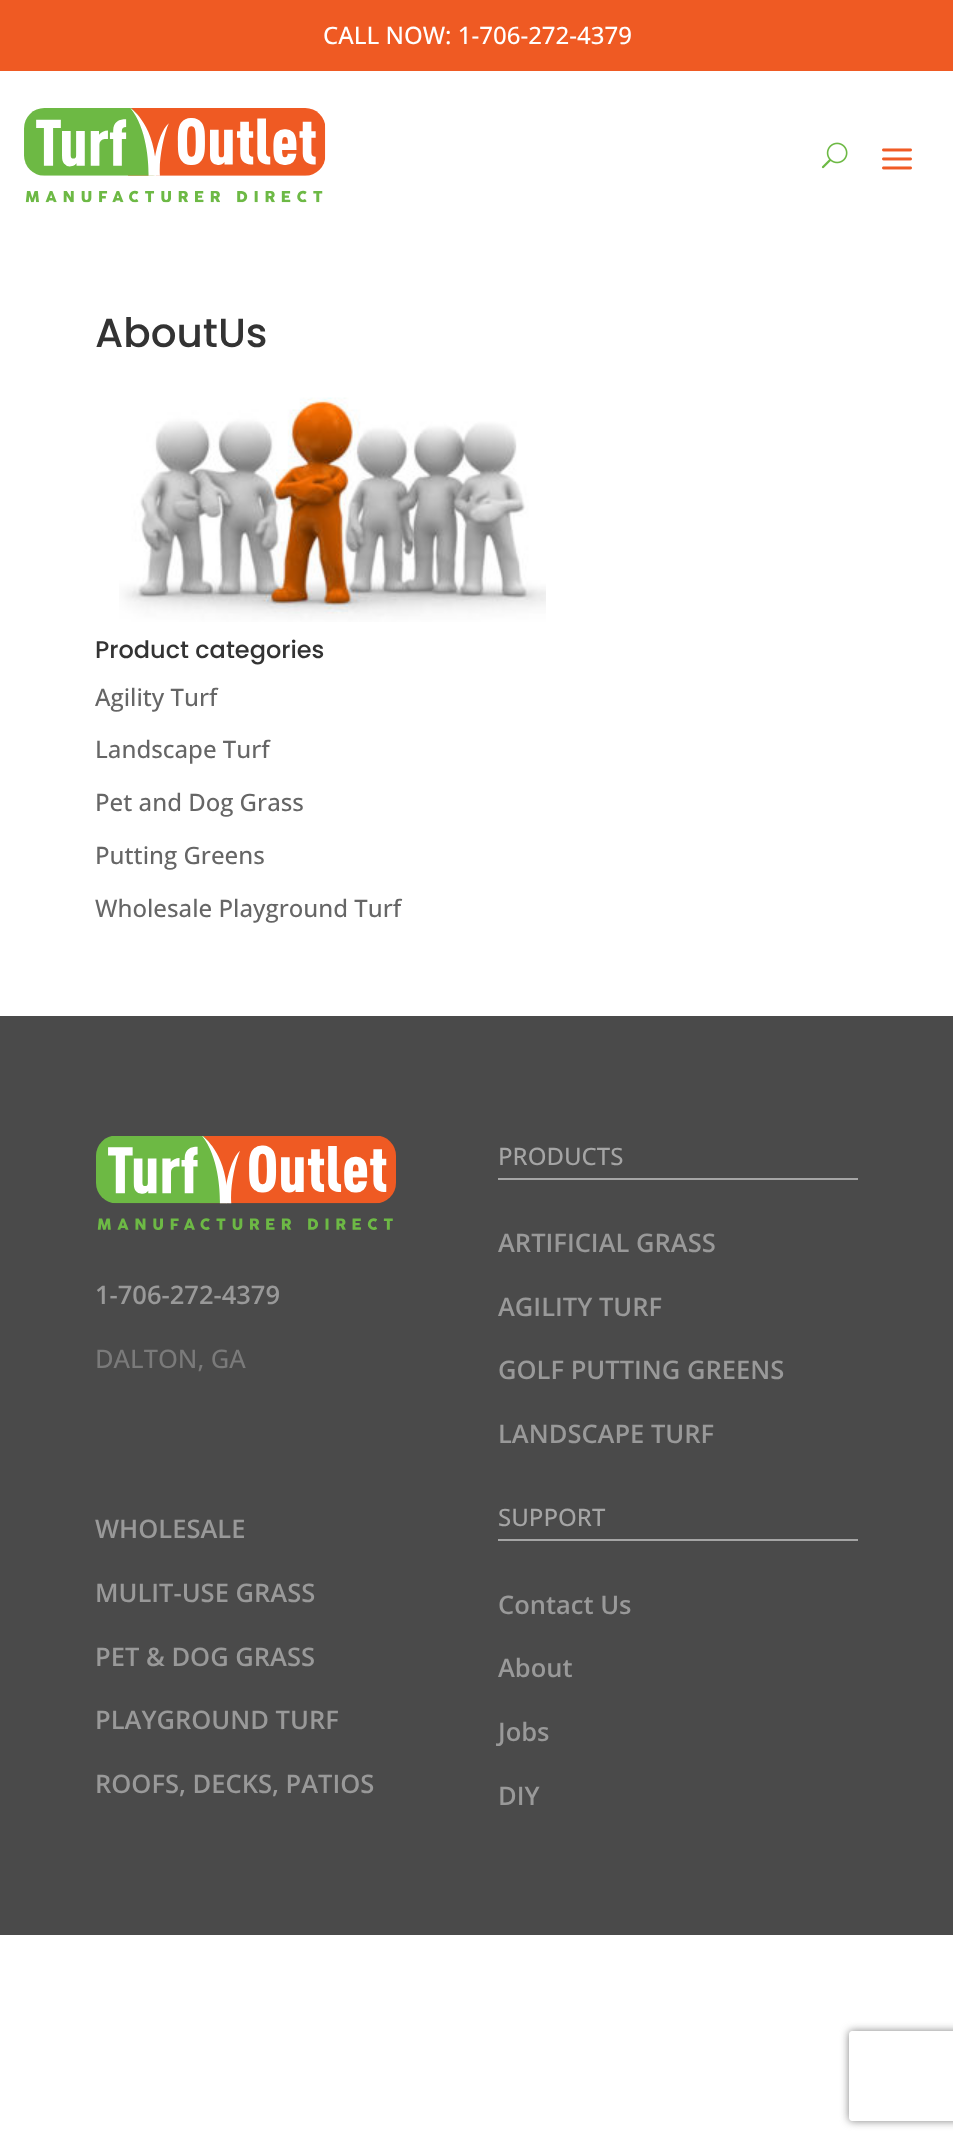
<svg xmlns="http://www.w3.org/2000/svg" width="953" height="2142" viewBox="0 0 953 2142">
  <defs>
    <clipPath id="clip1"><path d="M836 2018H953V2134H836ZM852 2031H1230C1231.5 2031 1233 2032.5 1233 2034V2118C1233 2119.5 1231.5 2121 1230 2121H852C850.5 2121 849 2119.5 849 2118V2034C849 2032.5 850.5 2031 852 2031Z" clip-rule="evenodd"/></clipPath>
  </defs>
  <rect width="100%" height="100%" fill="rgb(255,255,255)"/>
  <rect x="0" y="0" width="953" height="71" fill="rgb(239,90,35)"/>
  <text x="323" y="44" font-family="Open Sans" font-size="24" font-weight="500" fill="rgb(255,255,255)">CALL NOW: 1-706-272-4379</text>
  <image x="24" y="108" width="302" height="95" href="pic1.png"/>
  <image x="821" y="142" width="27" height="27" href="pic2.png"/>
  <image x="882" y="148" width="30" height="22" href="pic3.png"/>
  <text x="95" y="347" font-family="Poppins" font-size="40.5" font-weight="500" fill="rgb(51,51,51)">AboutUs</text>
  <image x="119" y="397" width="427" height="225" href="pic4.png"/>
  <text x="95" y="658" font-family="Poppins" font-size="24" font-weight="500" fill="rgb(51,51,51)">Product categories</text>
  <g font-family="Open Sans" font-size="24" font-weight="500" fill="rgb(102,102,102)">
    <text x="95" y="706">Agility Turf</text>
    <text x="95" y="758">Landscape Turf</text>
    <text x="95" y="811">Pet and Dog Grass</text>
    <text x="95" y="864">Putting Greens</text>
    <text x="95" y="917">Wholesale Playground Turf</text>
  </g>
  <rect x="0" y="1016" width="953" height="919" fill="rgb(74,74,74)"/>
  <image x="96" y="1136" width="300" height="94" href="pic5.png"/>
  <text x="95" y="1304" font-family="Open Sans" font-size="25.5" font-weight="600" fill="rgb(153,153,153)">1-706-272-4379</text>
  <text x="95" y="1368" font-family="Open Sans" font-size="25.5" font-weight="500" fill="rgb(122,122,122)">DALTON, GA</text>
  <rect x="498" y="1178" width="360" height="2" fill="rgb(165,165,165)"/>
  <text x="498" y="1165" font-family="Open Sans" font-size="24" font-weight="500" fill="rgb(165,165,165)">PRODUCTS</text>
  <g font-family="Open Sans" font-size="25.5" font-weight="600" fill="rgb(153,153,153)">
    <text x="498" y="1252">ARTIFICIAL GRASS</text>
    <text x="498" y="1316">AGILITY TURF</text>
    <text x="498" y="1379">GOLF PUTTING GREENS</text>
    <text x="498" y="1443">LANDSCAPE TURF</text>
    <text x="95" y="1538">WHOLESALE</text>
    <text x="95" y="1602">MULIT-USE GRASS</text>
    <text x="95" y="1666">PET &amp; DOG GRASS</text>
    <text x="95" y="1729">PLAYGROUND TURF</text>
    <text x="95" y="1793">ROOFS, DECKS, PATIOS</text>
  </g>
  <rect x="498" y="1539" width="360" height="2" fill="rgb(165,165,165)"/>
  <text x="498" y="1526" font-family="Open Sans" font-size="24" font-weight="500" fill="rgb(165,165,165)">SUPPORT</text>
  <g font-family="Open Sans" font-size="25.5" font-weight="600" fill="rgb(153,153,153)">
    <text x="498" y="1614">Contact Us</text>
    <text x="498" y="1677">About</text>
    <text x="498" y="1741">Jobs</text>
    <text x="498" y="1805">DIY</text>
  </g>
  <g clip-path="url(#clip1)">
    <rect x="849" y="2031" width="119" height="90" rx="3" fill="rgb(128,128,128)" filter="blur(4px)"/>
  </g>
</svg>
